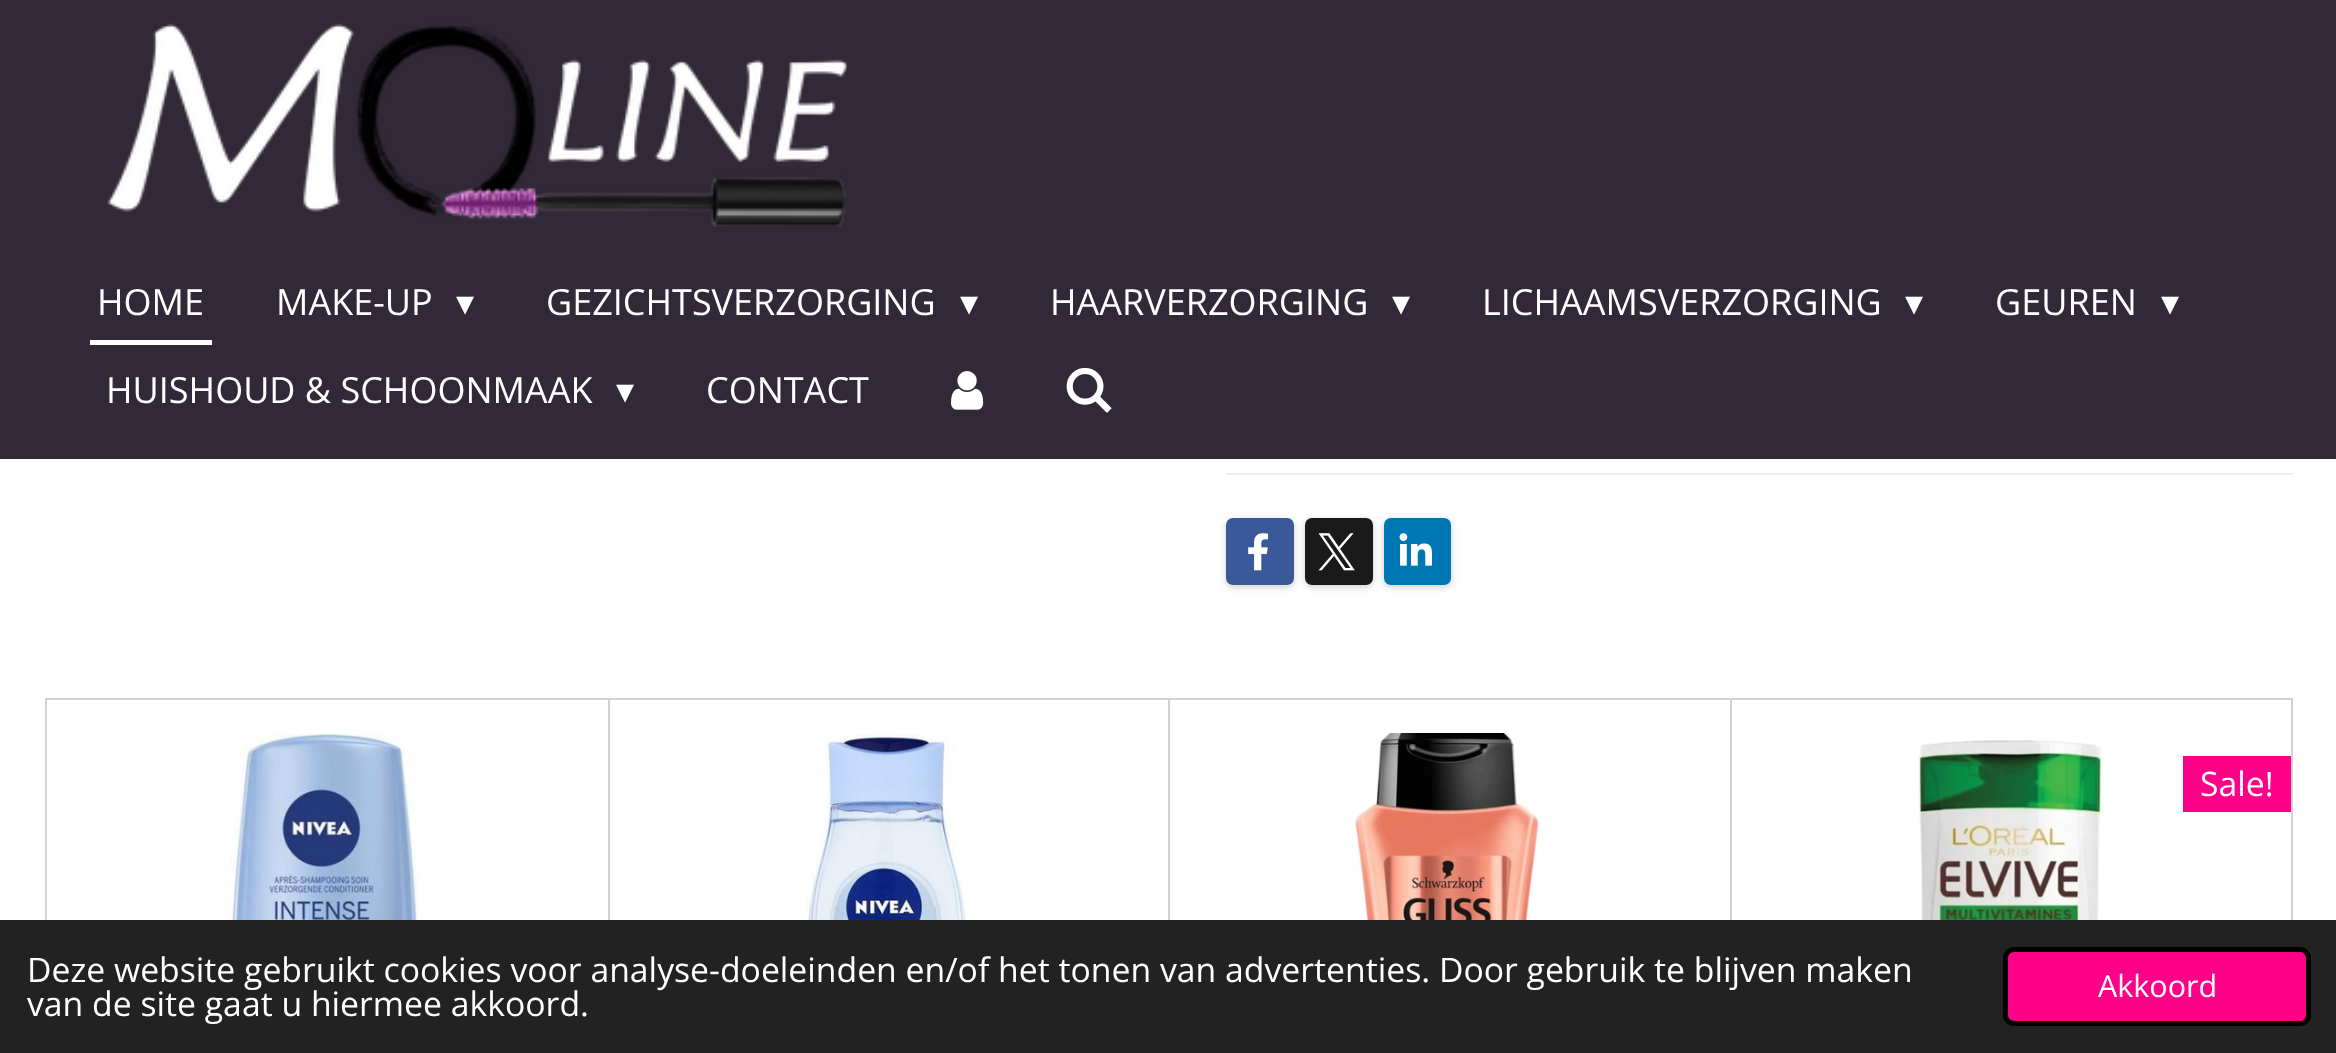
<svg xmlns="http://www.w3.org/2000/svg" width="2336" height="1053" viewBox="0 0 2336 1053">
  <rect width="100%" height="100%" fill="rgb(255,255,255)"/>
  <rect x="0" y="0" width="2336" height="459" fill="rgb(50,41,56)"/>
  <image x="107" y="23" width="741" height="205" href="pic1.png"/>
  <rect x="90" y="340" width="122" height="5" fill="rgb(255,255,255)"/>
  <g font-family="Open Sans" font-size="36" fill="rgb(255,255,255)">
    <text x="97" y="315">HOME</text>
    <text x="276" y="315">MAKE-UP</text>
  </g>
  <text x="456" y="315" font-family="DejaVu Sans" font-size="36" fill="rgb(255,255,255)">▾</text>
  <text x="546" y="315" font-family="Open Sans" font-size="36" fill="rgb(255,255,255)">GEZICHTSVERZORGING</text>
  <text x="960" y="315" font-family="DejaVu Sans" font-size="36" fill="rgb(255,255,255)">▾</text>
  <text x="1050" y="315" font-family="Open Sans" font-size="36" fill="rgb(255,255,255)">HAARVERZORGING</text>
  <text x="1392" y="315" font-family="DejaVu Sans" font-size="36" fill="rgb(255,255,255)">▾</text>
  <text x="1482" y="315" font-family="Open Sans" font-size="36" fill="rgb(255,255,255)">LICHAAMSVERZORGING</text>
  <text x="1905" y="315" font-family="DejaVu Sans" font-size="36" fill="rgb(255,255,255)">▾</text>
  <text x="1995" y="315" font-family="Open Sans" font-size="36" fill="rgb(255,255,255)">GEUREN</text>
  <text x="2161" y="315" font-family="DejaVu Sans" font-size="36" fill="rgb(255,255,255)">▾</text>
  <text x="106" y="403" font-family="Open Sans" font-size="36" fill="rgb(255,255,255)">HUISHOUD &amp; SCHOONMAAK</text>
  <text x="616" y="403" font-family="DejaVu Sans" font-size="36" fill="rgb(255,255,255)">▾</text>
  <text x="706" y="403" font-family="Open Sans" font-size="36" fill="rgb(255,255,255)">CONTACT</text>
  <image x="951" y="371" width="33" height="39" href="pic2.png"/>
  <image x="1066" y="367" width="46" height="46" href="pic3.png"/>
  <rect x="1226" y="473" width="1067" height="2" fill="rgb(239,239,239)"/>
  <rect x="1226" y="520" width="68" height="67" rx="7" fill="rgba(0,0,0,0.2)" filter="blur(3.5px)"/>
  <rect x="1226" y="518" width="68" height="67" rx="7" fill="rgb(59,89,152)"/>
  <image x="1248" y="533" width="21" height="38" href="pic4.png"/>
  <rect x="1305" y="520" width="68" height="67" rx="7" fill="rgba(0,0,0,0.2)" filter="blur(3.5px)"/>
  <rect x="1305" y="518" width="68" height="67" rx="7" fill="rgb(26,26,26)"/>
  <image x="1318" y="533" width="37" height="38" href="pic5.png"/>
  <rect x="1384" y="520" width="67" height="67" rx="7" fill="rgba(0,0,0,0.2)" filter="blur(3.5px)"/>
  <rect x="1384" y="518" width="67" height="67" rx="7" fill="rgb(0,119,181)"/>
  <image x="1399" y="533" width="33" height="33" href="pic6.png"/>
  <rect x="46" y="699" width="563" height="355" fill="none" stroke="rgb(210,210,210)" stroke-width="2"/>
  <image x="230" y="733" width="189" height="187" href="pic7.png"/>
  <rect x="609" y="699" width="560" height="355" fill="none" stroke="rgb(210,210,210)" stroke-width="2"/>
  <image x="807" y="734" width="160" height="186" href="pic8.png"/>
  <rect x="1169" y="699" width="563" height="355" fill="none" stroke="rgb(210,210,210)" stroke-width="2"/>
  <image x="1355" y="733" width="184" height="187" href="pic9.png"/>
  <rect x="1732" y="700" width="1" height="220" fill="rgb(255,255,255)"/>
  <rect x="1731" y="699" width="561" height="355" fill="none" stroke="rgb(210,210,210)" stroke-width="2"/>
  <image x="1917" y="740" width="187" height="180" href="pic10.png"/>
  <rect x="2183" y="756" width="108" height="56" fill="rgb(255,0,137)"/>
  <text x="2200" y="796" font-family="Open Sans" font-size="33.75" fill="rgb(255,255,255)">Sale!</text>
  <rect x="0" y="920" width="2336" height="133" fill="rgb(34,34,34)"/>
  <g font-family="Open Sans" font-size="33.75" fill="rgb(255,255,255)">
    <text>
      <tspan x="27" y="982">Deze website gebruikt cookies voor analyse-doeleinden en/of het tonen van advertenties. Door gebruik te blijven maken</tspan>
      <tspan x="27" y="1016">van de site gaat u hiermee akkoord.</tspan>
    </text>
  </g>
  <rect x="2005.5" y="949.5" width="303" height="74" rx="8.5" fill="rgb(255,0,137)" stroke="rgb(0,0,0)" stroke-width="5"/>
  <text x="2098" y="997" font-family="Open Sans" font-size="30.5" fill="rgb(255,255,255)">Akkoord</text>
</svg>
